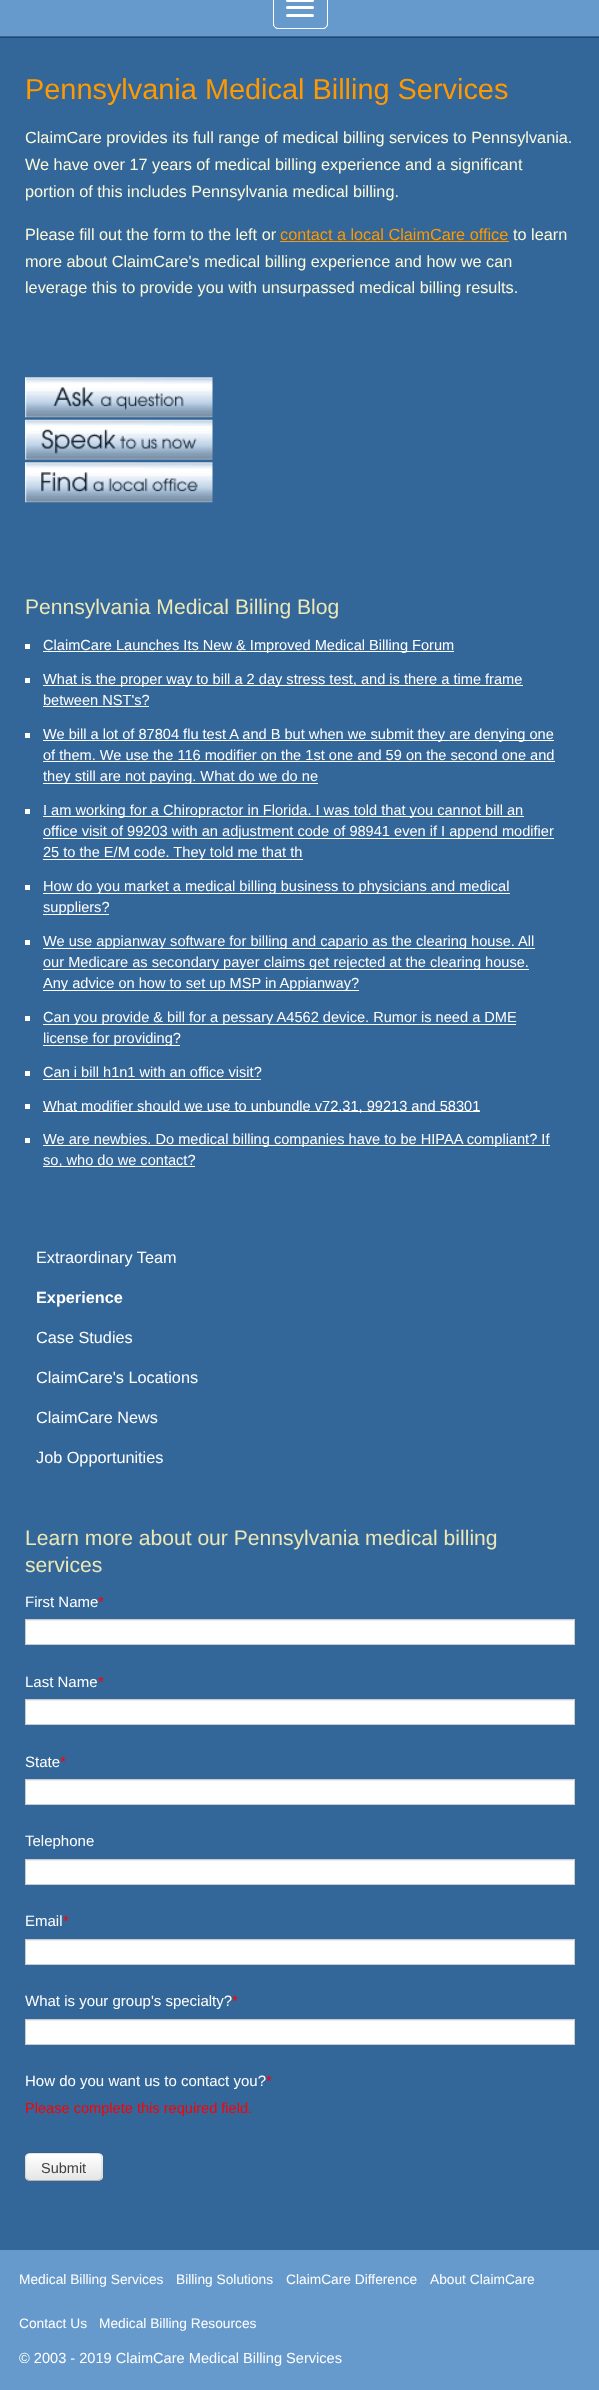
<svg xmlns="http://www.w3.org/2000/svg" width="599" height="2390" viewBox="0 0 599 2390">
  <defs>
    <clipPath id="clip1"><rect x="25" y="2153" width="78" height="28" rx="5"/></clipPath>
    <linearGradient id="g1" gradientUnits="userSpaceOnUse" x1="64" y1="2154" x2="64" y2="2180"><stop offset="0" stop-color="rgb(255,255,255)"/><stop offset="1" stop-color="rgb(230,230,230)"/></linearGradient>
  </defs>
  <rect width="100%" height="100%" fill="rgb(36,72,107)"/>
  <rect x="0" y="0" width="599" height="36" fill="rgb(102,153,204)"/>
  <rect x="273.5" y="-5.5" width="54" height="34" rx="4.5" fill="none" stroke="rgb(255,255,255)"/>
  <rect x="273.5" y="-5.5" width="54" height="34" rx="4.5" fill="none" stroke="rgb(255,255,255)"/>
  <rect x="286" y="6" width="28" height="3" rx="1.5" fill="rgb(255,255,255)"/>
  <rect x="286" y="-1" width="28" height="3" rx="1.5" fill="rgb(255,255,255)"/>
  <rect x="286" y="14" width="28" height="3" rx="1.5" fill="rgb(255,255,255)"/>
  <rect x="0" y="36" width="599" height="1" fill="rgb(51,102,153)"/>
  <rect x="0" y="38" width="599" height="2212" fill="rgb(51,102,153)"/>
  <text x="25" y="99" font-family="Liberation Sans" font-size="28.9" fill="rgb(255,153,0)">Pennsylvania Medical Billing Services</text>
  <g font-family="Liberation Sans" font-size="16.25" fill="rgb(252,250,219)">
    <text>
      <tspan x="25" y="143">ClaimCare provides its full range of medical billing services to Pennsylvania.</tspan>
      <tspan x="25" y="170">We have over 17 years of medical billing experience and a significant</tspan>
      <tspan x="25" y="197">portion of this includes Pennsylvania medical billing.</tspan>
    </text>
    <text x="25" y="240">Please fill out the form to the left or</text>
  </g>
  <text x="280" y="240" font-family="Liberation Sans" font-size="16.25" fill="rgb(255,153,0)">contact a local ClaimCare office</text>
  <rect x="280" y="241" width="229" height="1" fill="rgb(255,153,0)"/>
  <g font-family="Liberation Sans" font-size="16.25" fill="rgb(252,250,219)">
    <text x="513" y="240">to learn</text>
    <text>
      <tspan x="25" y="267">more about ClaimCare's medical billing experience and how we can</tspan>
      <tspan x="25" y="293">leverage this to provide you with unsurpassed medical billing results.</tspan>
    </text>
  </g>
  <image x="25" y="377" width="188" height="41" href="pic1.png"/>
  <image x="25" y="419" width="188" height="41" href="pic2.png"/>
  <image x="25" y="462" width="188" height="41" href="pic3.png"/>
  <text x="25" y="614" font-family="Liberation Sans" font-size="21.1" fill="rgb(236,232,183)">Pennsylvania Medical Billing Blog</text>
  <rect x="25" y="644" width="5" height="5" fill="rgb(255,255,255)"/>
  <rect x="43" y="651" width="411" height="1" fill="rgb(255,255,255)"/>
  <text x="43" y="650" font-family="Liberation Sans" font-size="14.6" fill="rgb(255,255,255)">ClaimCare Launches Its New &amp; Improved Medical Billing Forum</text>
  <rect x="25" y="678" width="5" height="5" fill="rgb(255,255,255)"/>
  <rect x="43" y="685" width="480" height="1" fill="rgb(255,255,255)"/>
  <g font-family="Liberation Sans" font-size="14.6" fill="rgb(255,255,255)">
    <text>
      <tspan x="43" y="684">What is the proper way to bill a 2 day stress test, and is there a time frame</tspan>
      <tspan x="43" y="705">between NST's?</tspan>
    </text>
  </g>
  <rect x="43" y="706" width="106" height="1" fill="rgb(255,255,255)"/>
  <rect x="25" y="733" width="5" height="5" fill="rgb(255,255,255)"/>
  <rect x="43" y="740" width="511" height="1" fill="rgb(255,255,255)"/>
  <g font-family="Liberation Sans" font-size="14.6" fill="rgb(255,255,255)">
    <text>
      <tspan x="43" y="739">We bill a lot of 87804 flu test A and B but when we submit they are denying one</tspan>
      <tspan x="43" y="760">of them. We use the 116 modifier on the 1st one and 59 on the second one and</tspan>
    </text>
  </g>
  <rect x="43" y="761" width="512" height="1" fill="rgb(255,255,255)"/>
  <rect x="43" y="783" width="275" height="1" fill="rgb(255,255,255)"/>
  <text x="43" y="781" font-family="Liberation Sans" font-size="14.6" fill="rgb(255,255,255)">they still are not paying. What do we do ne</text>
  <rect x="25" y="809" width="5" height="5" fill="rgb(255,255,255)"/>
  <rect x="43" y="816" width="481" height="1" fill="rgb(255,255,255)"/>
  <text x="43" y="815" font-family="Liberation Sans" font-size="14.6" fill="rgb(255,255,255)">I am working for a Chiropractor in Florida. I was told that you cannot bill an</text>
  <rect x="43" y="838" width="511" height="1" fill="rgb(255,255,255)"/>
  <text x="43" y="836" font-family="Liberation Sans" font-size="14.6" fill="rgb(255,255,255)">office visit of 99203 with an adjustment code of 98941 even if I append modifier</text>
  <rect x="43" y="859" width="260" height="1" fill="rgb(255,255,255)"/>
  <text x="43" y="857" font-family="Liberation Sans" font-size="14.6" fill="rgb(255,255,255)">25 to the E/M code. They told me that th</text>
  <rect x="25" y="885" width="5" height="5" fill="rgb(255,255,255)"/>
  <rect x="43" y="893" width="467" height="1" fill="rgb(255,255,255)"/>
  <text x="43" y="891" font-family="Liberation Sans" font-size="14.6" fill="rgb(255,255,255)">How do you market a medical billing business to physicians and medical</text>
  <rect x="43" y="914" width="66" height="1" fill="rgb(255,255,255)"/>
  <text x="43" y="912" font-family="Liberation Sans" font-size="14.6" fill="rgb(255,255,255)">suppliers?</text>
  <rect x="25" y="940" width="5" height="5" fill="rgb(255,255,255)"/>
  <rect x="43" y="948" width="492" height="1" fill="rgb(255,255,255)"/>
  <text x="43" y="946" font-family="Liberation Sans" font-size="14.6" fill="rgb(255,255,255)">We use appianway software for billing and capario as the clearing house. All</text>
  <rect x="43" y="969" width="486" height="1" fill="rgb(255,255,255)"/>
  <text x="43" y="967" font-family="Liberation Sans" font-size="14.6" fill="rgb(255,255,255)">our Medicare as secondary payer claims get rejected at the clearing house.</text>
  <rect x="43" y="990" width="316" height="1" fill="rgb(255,255,255)"/>
  <text x="43" y="988" font-family="Liberation Sans" font-size="14.6" fill="rgb(255,255,255)">Any advice on how to set up MSP in Appianway?</text>
  <rect x="25" y="1016" width="5" height="5" fill="rgb(255,255,255)"/>
  <rect x="43" y="1024" width="473" height="1" fill="rgb(255,255,255)"/>
  <text x="43" y="1022" font-family="Liberation Sans" font-size="14.6" fill="rgb(255,255,255)">Can you provide &amp; bill for a pessary A4562 device. Rumor is need a DME</text>
  <rect x="43" y="1045" width="137" height="1" fill="rgb(255,255,255)"/>
  <text x="43" y="1043" font-family="Liberation Sans" font-size="14.6" fill="rgb(255,255,255)">license for providing?</text>
  <rect x="25" y="1071" width="5" height="5" fill="rgb(255,255,255)"/>
  <text x="43" y="1077" font-family="Liberation Sans" font-size="14.6" fill="rgb(255,255,255)">Can i bill h1n1 with an office visit?</text>
  <rect x="43" y="1079" width="218" height="1" fill="rgb(255,255,255)"/>
  <rect x="25" y="1104" width="5" height="5" fill="rgb(255,255,255)"/>
  <rect x="43" y="1111" width="437" height="1" fill="rgb(255,255,255)"/>
  <text x="43" y="1111" font-family="Liberation Sans" font-size="14.6" fill="rgb(255,255,255)">What modifier should we use to unbundle v72.31, 99213 and 58301</text>
  <rect x="25" y="1138" width="5" height="5" fill="rgb(255,255,255)"/>
  <rect x="43" y="1145" width="507" height="1" fill="rgb(255,255,255)"/>
  <text x="43" y="1144" font-family="Liberation Sans" font-size="14.6" fill="rgb(255,255,255)">We are newbies. Do medical billing companies have to be HIPAA compliant? If</text>
  <rect x="43" y="1166" width="152" height="1" fill="rgb(255,255,255)"/>
  <text x="43" y="1165" font-family="Liberation Sans" font-size="14.6" fill="rgb(255,255,255)">so, who do we contact?</text>
  <text x="36" y="1263" font-family="Liberation Sans" font-size="16.25" fill="rgb(255,255,255)">Extraordinary Team</text>
  <text x="36" y="1303" font-family="Liberation Sans" font-size="16.25" font-weight="bold" fill="rgb(255,255,255)">Experience</text>
  <g font-family="Liberation Sans" font-size="16.25" fill="rgb(255,255,255)">
    <text x="36" y="1343">Case Studies</text>
    <text x="36" y="1383">ClaimCare's Locations</text>
    <text x="36" y="1423">ClaimCare News</text>
    <text x="36" y="1463">Job Opportunities</text>
  </g>
  <g font-family="Liberation Sans" font-size="21.1" fill="rgb(236,232,183)">
    <text>
      <tspan x="25" y="1545">Learn more about our Pennsylvania medical billing</tspan>
      <tspan x="25" y="1572">services</tspan>
    </text>
  </g>
  <text x="25" y="1607" font-family="Liberation Sans" font-size="15" fill="rgb(255,255,255)">First Name</text>
  <text x="98" y="1607" font-family="Liberation Sans" font-size="15" fill="rgb(255,0,0)">*</text>
  <rect x="26" y="1621" width="548" height="23" fill="rgb(255,255,255)"/>
  <rect x="26" y="1620" width="548" height="1" fill="rgb(236,236,236)"/>
  <rect x="25.5" y="1619.5" width="549" height="25" fill="none" stroke="rgb(204,204,204)"/>
  <text x="25" y="1687" font-family="Liberation Sans" font-size="15" fill="rgb(255,255,255)">Last Name</text>
  <text x="98" y="1687" font-family="Liberation Sans" font-size="15" fill="rgb(255,0,0)">*</text>
  <rect x="26" y="1701" width="548" height="23" fill="rgb(255,255,255)"/>
  <rect x="26" y="1700" width="548" height="1" fill="rgb(236,236,236)"/>
  <rect x="25.5" y="1699.5" width="549" height="25" fill="none" stroke="rgb(204,204,204)"/>
  <text x="25" y="1767" font-family="Liberation Sans" font-size="15" fill="rgb(255,255,255)">State</text>
  <text x="60" y="1767" font-family="Liberation Sans" font-size="15" fill="rgb(255,0,0)">*</text>
  <rect x="26" y="1781" width="548" height="23" fill="rgb(255,255,255)"/>
  <rect x="26" y="1780" width="548" height="1" fill="rgb(236,236,236)"/>
  <rect x="25.5" y="1779.5" width="549" height="25" fill="none" stroke="rgb(204,204,204)"/>
  <text x="25" y="1846" font-family="Liberation Sans" font-size="15" fill="rgb(255,255,255)">Telephone</text>
  <rect x="26" y="1861" width="548" height="23" fill="rgb(255,255,255)"/>
  <rect x="26" y="1860" width="548" height="1" fill="rgb(236,236,236)"/>
  <rect x="25.5" y="1859.5" width="549" height="25" fill="none" stroke="rgb(204,204,204)"/>
  <text x="25" y="1926" font-family="Liberation Sans" font-size="15" fill="rgb(255,255,255)">Email</text>
  <text x="63" y="1926" font-family="Liberation Sans" font-size="15" fill="rgb(255,0,0)">*</text>
  <rect x="26" y="1941" width="548" height="23" fill="rgb(255,255,255)"/>
  <rect x="26" y="1940" width="548" height="1" fill="rgb(236,236,236)"/>
  <rect x="25.5" y="1939.5" width="549" height="25" fill="none" stroke="rgb(204,204,204)"/>
  <text x="25" y="2006" font-family="Liberation Sans" font-size="15" fill="rgb(255,255,255)">What is your group's specialty?</text>
  <text x="232" y="2006" font-family="Liberation Sans" font-size="15" fill="rgb(255,0,0)">*</text>
  <rect x="26" y="2021" width="548" height="23" fill="rgb(255,255,255)"/>
  <rect x="26" y="2020" width="548" height="1" fill="rgb(236,236,236)"/>
  <rect x="25.5" y="2019.5" width="549" height="25" fill="none" stroke="rgb(204,204,204)"/>
  <text x="25" y="2086" font-family="Liberation Sans" font-size="15" fill="rgb(255,255,255)">How do you want us to contact you?</text>
  <text x="266" y="2086" font-family="Liberation Sans" font-size="15" fill="rgb(255,0,0)">*</text>
  <text x="25" y="2113" font-family="Liberation Sans" font-size="14.6" fill="rgb(255,0,0)">Please complete this required field.</text>
  <rect x="25" y="2153" width="78" height="28" rx="5" fill="rgb(245,245,245)"/>
  <g clip-path="url(#clip1)">
    <rect x="25" y="2154" width="78" height="26" fill="url(#g1)"/>
  </g>
  <path d="M100.5 2179.5L98 2180.5H29.5L27 2179.5" fill="none" stroke="rgb(179,179,179)" stroke-width="1.2"/>
  <path d="M27 2179.5C24.5 2176.5 25.5 2170 25.5 2167C25.5 2151 24.5 2153 41 2153H86C103 2153 102 2151 102 2167C102 2170 103 2176.5 100.5 2179.5" fill="none" stroke="rgba(0,0,0,0.1)" stroke-width="1.2"/>
  <text x="41" y="2173" font-family="Liberation Sans" font-size="14.5" fill="rgb(65,65,65)">Submit</text>
  <rect x="0" y="2250" width="599" height="140" fill="rgb(102,153,204)"/>
  <g font-family="Liberation Sans" font-size="13.75" fill="rgb(255,255,255)">
    <text x="19" y="2284">Medical Billing Services</text>
    <text x="176" y="2284">Billing Solutions</text>
    <text x="286" y="2284">ClaimCare Difference</text>
    <text x="430" y="2284">About ClaimCare</text>
    <text x="19" y="2328">Contact Us</text>
    <text x="99" y="2328">Medical Billing Resources</text>
  </g>
  <text x="19" y="2363" font-family="Liberation Sans" font-size="14.6" fill="rgb(255,255,255)">© 2003 - 2019 ClaimCare Medical Billing Services</text>
</svg>
